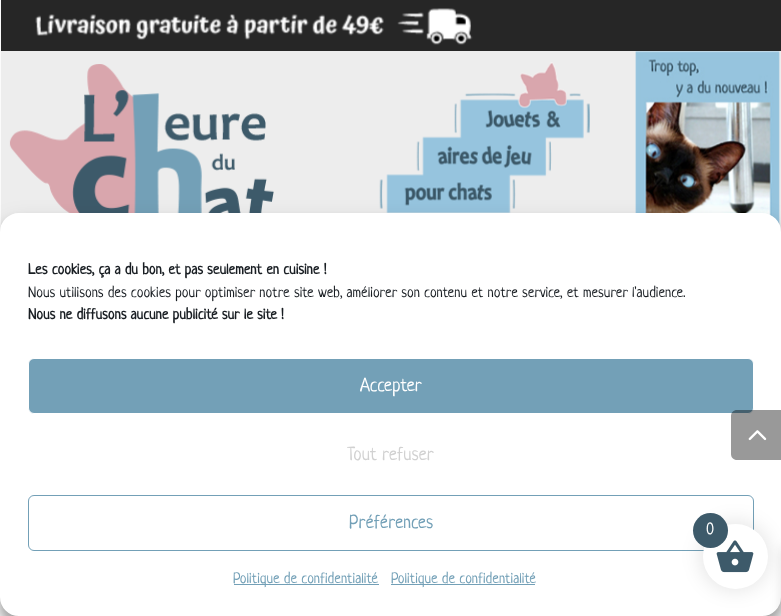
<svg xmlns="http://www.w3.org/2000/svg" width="781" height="616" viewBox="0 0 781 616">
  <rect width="100%" height="100%" fill="rgb(251,251,251)"/>
  <rect x="1" y="0" width="780" height="51" fill="rgb(38,38,38)"/>
  <image x="35" y="8" width="438" height="37" href="pic1.png"/>
  <rect x="1" y="51" width="780" height="181" fill="rgb(237,237,237)"/>
  <image x="9" y="64" width="265" height="149" href="pic2.png"/>
  <image x="379" y="62" width="211" height="151" href="pic3.png"/>
  <image x="635" y="51" width="145" height="175" href="pic4.png"/>
  <rect x="0" y="220" width="781" height="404" rx="19" fill="rgba(0,0,0,0.23)" filter="blur(4px)"/>
  <rect x="0" y="225" width="781" height="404" rx="19" fill="rgba(0,0,0,0.19)" filter="blur(12.5px)"/>
  <rect x="1.5" y="214.5" width="778" height="400" rx="17.5" fill="rgb(255,255,255)" stroke="rgb(255,255,255)" stroke-width="3"/>
  <text x="28" y="274" font-family="Neucha" font-size="15" font-weight="bold" fill="rgb(25,30,35)">Les cookies, ça a du bon, et pas seulement en cuisine !</text>
  <text x="28" y="297" font-family="Neucha" font-size="15" fill="rgb(25,30,35)">Nous utilisons des cookies pour optimiser notre site web, améliorer son contenu et notre service, et mesurer l'audience.</text>
  <text x="28" y="319" font-family="Neucha" font-size="15" font-weight="bold" fill="rgb(25,30,35)">Nous ne diffusons aucune publicité sur le site !</text>
  <rect x="28.5" y="358.5" width="725" height="55" rx="5.5" fill="rgb(115,160,183)" stroke="rgb(255,255,255)"/>
  <text x="360" y="391" font-family="Neucha" font-size="18.75" fill="rgb(255,255,255)">Accepter</text>
  <text x="347" y="460" font-family="Neucha" font-size="18.75" fill="rgb(209,209,209)">Tout refuser</text>
  <rect x="28.5" y="495.5" width="725" height="55" rx="5.5" fill="none" stroke="rgb(115,160,183)"/>
  <text x="349" y="528" font-family="Neucha" font-size="18.75" fill="rgb(115,160,183)">Préférences</text>
  <rect x="234" y="584" width="145" height="1" fill="rgb(115,160,183)"/>
  <text x="233" y="583" font-family="Neucha" font-size="15" fill="rgb(115,160,183)">Politique de confidentialité</text>
  <rect x="391" y="584" width="144" height="1" fill="rgb(115,160,183)"/>
  <text x="391" y="583" font-family="Neucha" font-size="15" fill="rgb(115,160,183)">Politique de confidentialité</text>
  <path d="M737 410H781V460H737C733.5 460 731 457.5 731 454V416C731 412.5 733.5 410 737 410Z" fill="rgba(0,0,0,0.4)"/>
  <image x="748" y="430" width="19" height="11" href="pic5.png"/>
  <rect x="700" y="521" width="70" height="70" rx="35" fill="rgba(0,0,0,0.1)" filter="blur(9.5px)"/>
  <rect x="781" y="548" width="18" height="67" fill="rgba(0,0,0,0.1)" filter="blur(6px)"/>
  <circle cx="735.5" cy="556.5" r="32.5" fill="rgb(255,255,255)"/>
  <image x="716" y="540" width="38" height="33" href="pic6.png"/>
  <circle cx="710.5" cy="530.5" r="17.5" fill="rgb(61,90,106)"/>
  <text x="706" y="534" font-family="Neucha" font-size="16" fill="rgb(255,255,255)">0</text>
</svg>
